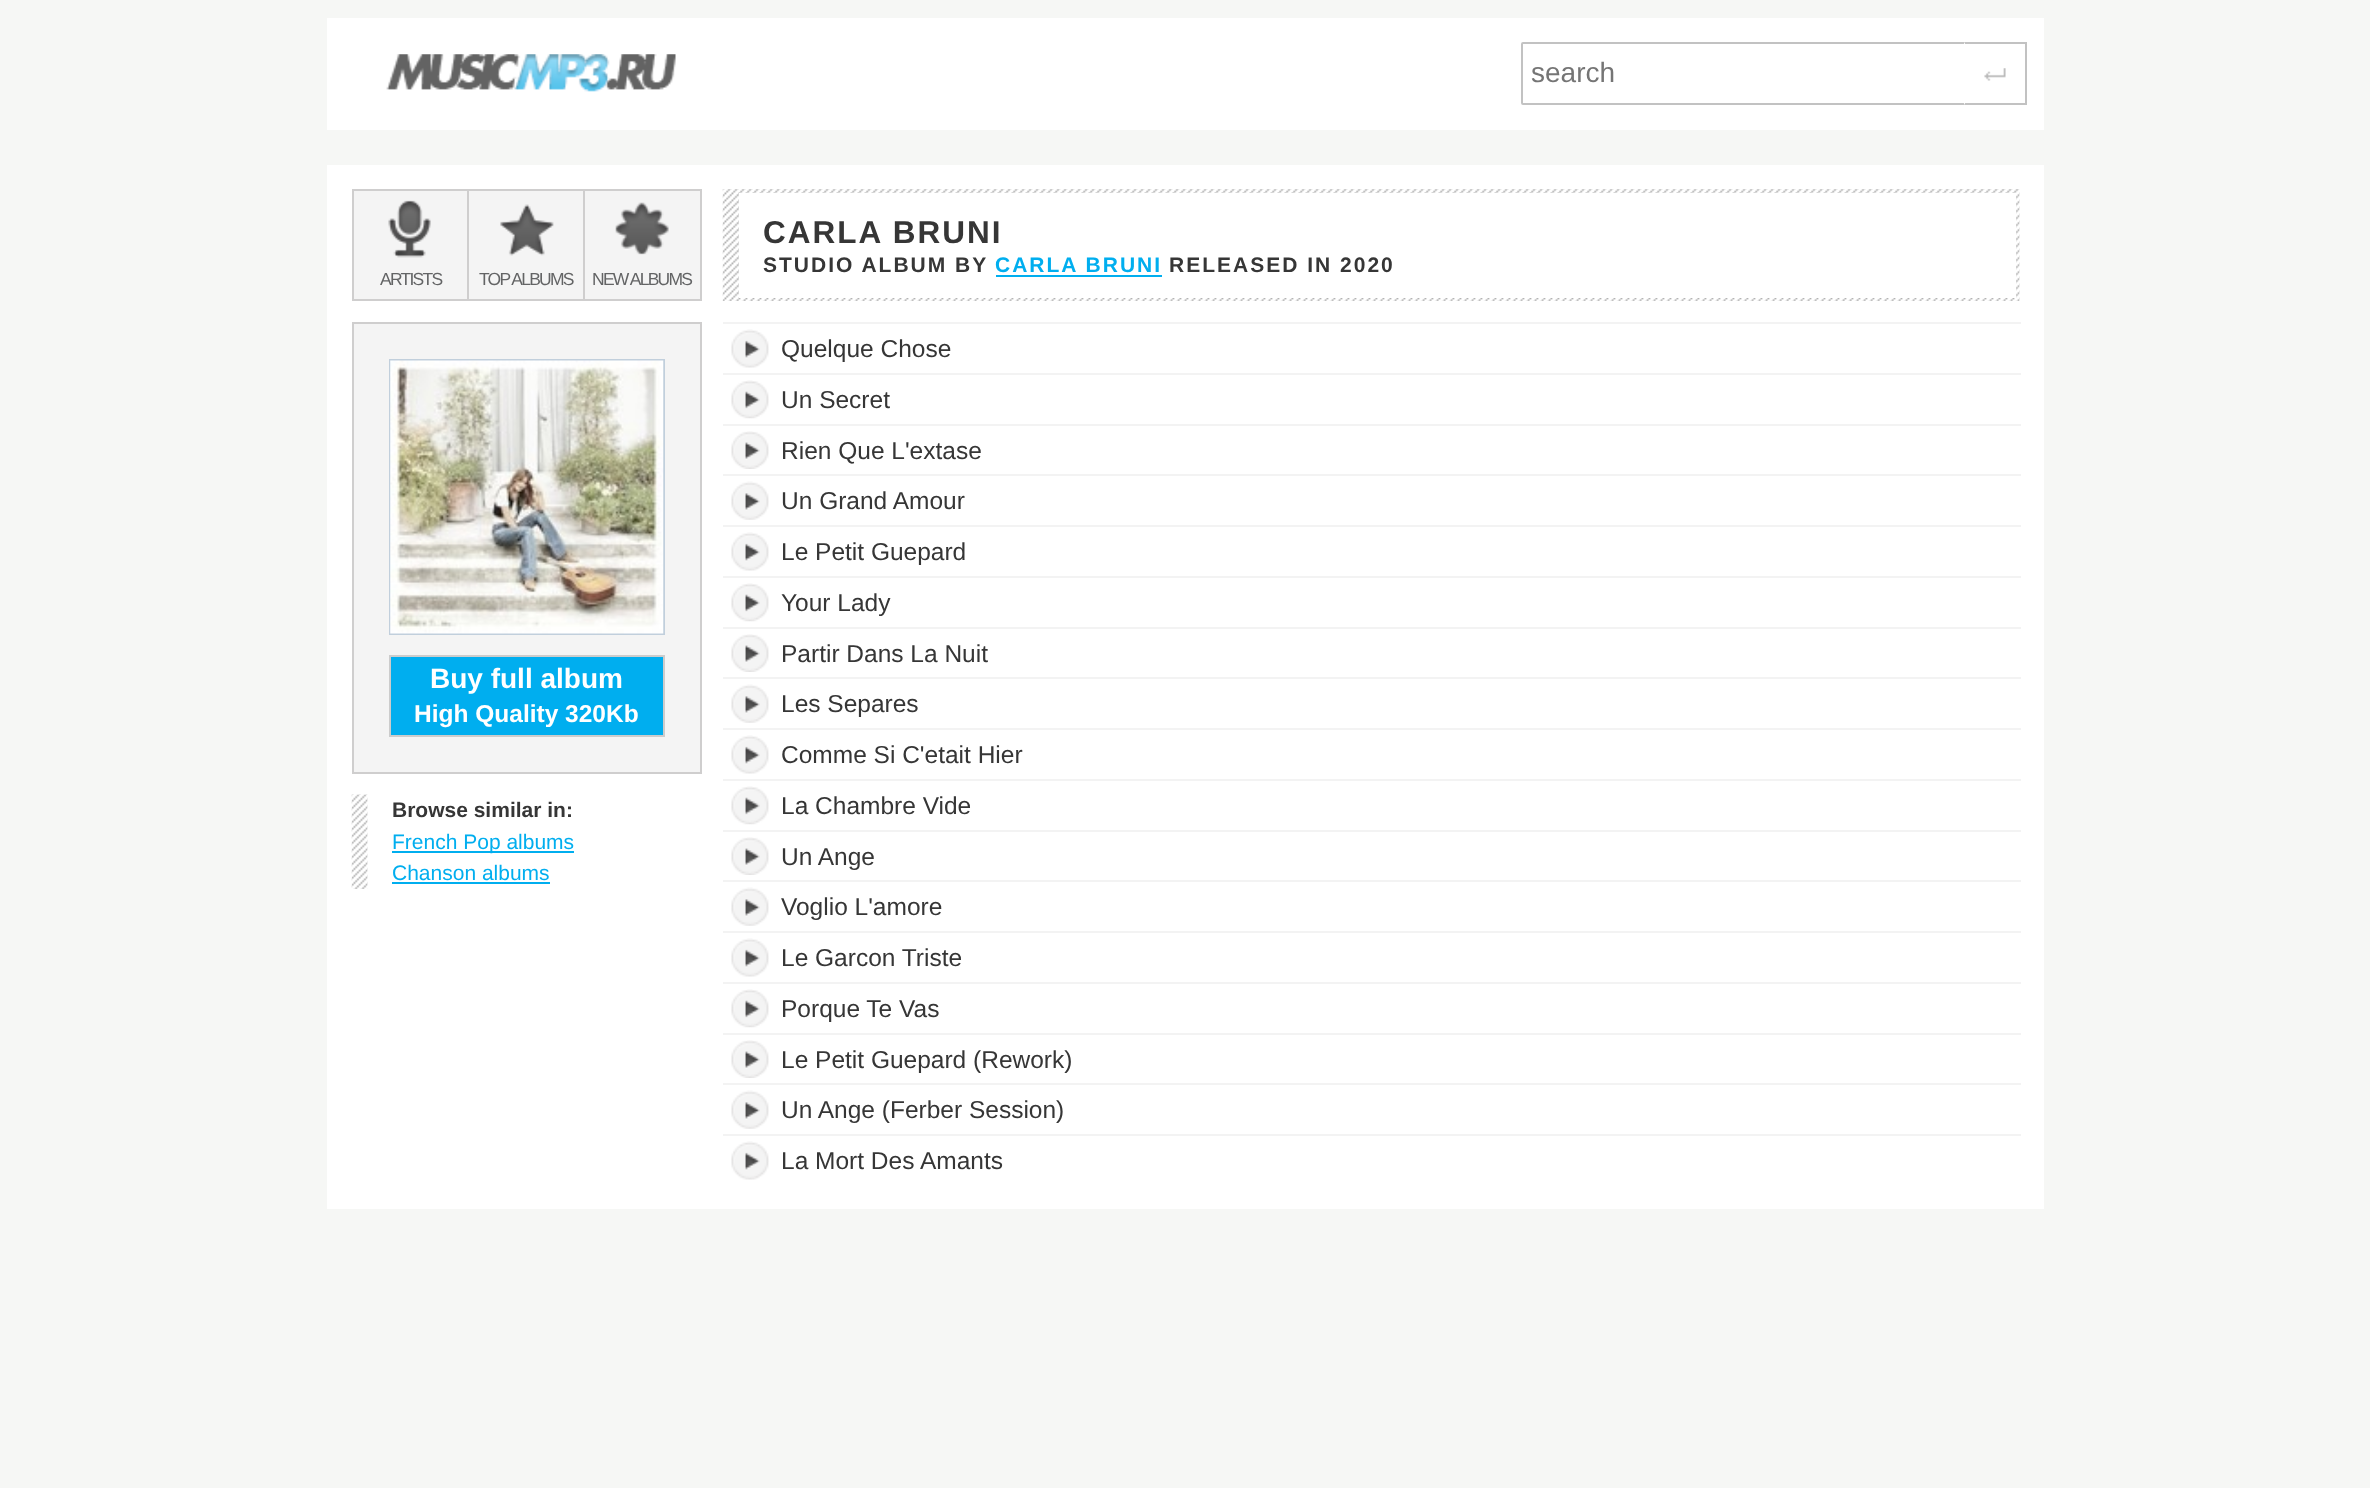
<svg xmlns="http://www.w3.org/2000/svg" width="2370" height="1488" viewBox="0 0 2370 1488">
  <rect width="100%" height="100%" fill="rgb(246,247,245)"/>
  <rect x="327" y="18" width="1717" height="112" fill="rgb(255,255,255)"/>
  <image x="386" y="54" width="290" height="38" href="pic1.png"/>
  <rect x="1522" y="43" width="504" height="61" rx="1" fill="none" stroke="rgb(194,194,194)" stroke-width="2"/>
  <text x="1531" y="82" font-family="Liberation Sans" font-size="28" fill="rgb(117,117,117)">search</text>
  <rect x="1964" y="42" width="63" height="63" rx="2" fill="rgb(255,255,255)"/>
  <image x="1984" y="68" width="22" height="13" href="pic2.png"/>
  <rect x="1965" y="42" width="62" height="2" fill="rgb(194,194,194)"/>
  <rect x="2025" y="44" width="2" height="61" fill="rgb(194,194,194)"/>
  <rect x="1965" y="103" width="62" height="2" fill="rgb(194,194,194)"/>
  <rect x="327" y="165" width="1717" height="1044" fill="rgb(255,255,255)"/>
  <image x="722" y="189" width="1298" height="112" href="pic3.png"/>
  <rect x="739" y="193" width="1277" height="105" fill="rgb(255,255,255)"/>
  <text x="763" y="243" font-family="Liberation Sans" font-size="31.5" font-weight="bold" letter-spacing="2" fill="rgb(54,54,54)">CARLA BRUNI</text>
  <text x="763" y="272" font-family="Liberation Sans" font-size="21" font-weight="bold" letter-spacing="2" fill="rgb(54,54,54)">STUDIO ALBUM BY</text>
  <text x="995" y="272" font-family="Liberation Sans" font-size="21" font-weight="bold" letter-spacing="2" fill="rgb(0,174,239)">CARLA BRUNI</text>
  <rect x="996" y="275" width="166" height="2" fill="rgb(0,174,239)"/>
  <text x="1169" y="272" font-family="Liberation Sans" font-size="21" font-weight="bold" letter-spacing="2" fill="rgb(54,54,54)">RELEASED IN 2020</text>
  <rect x="353" y="190" width="115" height="110" fill="rgb(244,244,244)" stroke="rgb(207,206,206)" stroke-width="2"/>
  <image x="388" y="200" width="43" height="58" href="pic4.png"/>
  <text x="380" y="285" font-family="Liberation Sans" font-size="17.5" letter-spacing="-1.75" fill="rgb(99,100,101)">ARTISTS</text>
  <rect x="469" y="191" width="114" height="108" fill="rgb(244,244,244)"/>
  <rect x="469" y="189" width="233" height="2" fill="rgb(207,206,206)"/>
  <rect x="583" y="189" width="2" height="112" fill="rgb(207,206,206)"/>
  <rect x="469" y="299" width="116" height="2" fill="rgb(207,206,206)"/>
  <image x="500" y="204" width="54" height="52" href="pic5.png"/>
  <text x="479" y="285" font-family="Liberation Sans" font-size="17.5" letter-spacing="-1.75" fill="rgb(99,100,101)">TOP ALBUMS</text>
  <rect x="585" y="191" width="115" height="108" fill="rgb(244,244,244)"/>
  <rect x="700" y="189" width="2" height="112" fill="rgb(207,206,206)"/>
  <rect x="585" y="299" width="117" height="2" fill="rgb(207,206,206)"/>
  <image x="615" y="202" width="54" height="53" href="pic6.png"/>
  <text x="592" y="285" font-family="Liberation Sans" font-size="17.5" letter-spacing="-1.75" fill="rgb(99,100,101)">NEW ALBUMS</text>
  <rect x="353" y="323" width="348" height="450" fill="rgb(244,244,244)" stroke="rgb(207,206,206)" stroke-width="2"/>
  <rect x="390" y="360" width="274" height="274" fill="none" stroke="rgb(193,207,220)" stroke-width="2"/>
  <image x="390" y="360" width="274" height="274" href="pic7.png"/>
  <rect x="390" y="656" width="274" height="80" fill="rgb(0,174,239)" stroke="rgb(204,204,204)" stroke-width="2"/>
  <text x="430" y="688" font-family="Liberation Sans" font-size="28" font-weight="bold" fill="rgb(255,255,255)">Buy full album</text>
  <text x="414" y="722" font-family="Liberation Sans" font-size="24.5" font-weight="bold" fill="rgb(255,255,255)">High Quality 320Kb</text>
  <image x="351" y="794" width="17" height="95" href="pic8.png"/>
  <text x="392" y="817" font-family="Liberation Sans" font-size="21" font-weight="bold" fill="rgb(54,54,54)">Browse similar in:</text>
  <rect x="392" y="851" width="182" height="2" fill="rgb(0,174,239)"/>
  <g font-family="Liberation Sans" font-size="21" fill="rgb(0,174,239)">
    <text>
      <tspan x="392" y="849">French Pop albums</tspan>
      <tspan x="392" y="880">Chanson albums</tspan>
    </text>
  </g>
  <rect x="392" y="882" width="158" height="2" fill="rgb(0,174,239)"/>
  <rect x="723" y="322" width="1298" height="2" fill="rgb(243,243,243)"/>
  <image x="731" y="329" width="38" height="39" href="pic9.png"/>
  <text x="781" y="357" font-family="Liberation Sans" font-size="24.5" fill="rgb(54,54,54)">Quelque Chose</text>
  <rect x="723" y="373" width="1298" height="2" fill="rgb(243,243,243)"/>
  <image x="731" y="380" width="38" height="39" href="pic10.png"/>
  <text x="781" y="408" font-family="Liberation Sans" font-size="24.5" fill="rgb(54,54,54)">Un Secret</text>
  <rect x="723" y="424" width="1298" height="2" fill="rgb(243,243,243)"/>
  <image x="731" y="431" width="38" height="38" href="pic11.png"/>
  <text x="781" y="459" font-family="Liberation Sans" font-size="24.5" fill="rgb(54,54,54)">Rien Que L'extase</text>
  <rect x="723" y="474" width="1298" height="2" fill="rgb(243,243,243)"/>
  <image x="731" y="481" width="38" height="39" href="pic12.png"/>
  <text x="781" y="509" font-family="Liberation Sans" font-size="24.5" fill="rgb(54,54,54)">Un Grand Amour</text>
  <rect x="723" y="525" width="1298" height="2" fill="rgb(243,243,243)"/>
  <image x="731" y="532" width="38" height="39" href="pic9.png"/>
  <text x="781" y="560" font-family="Liberation Sans" font-size="24.5" fill="rgb(54,54,54)">Le Petit Guepard</text>
  <rect x="723" y="576" width="1298" height="2" fill="rgb(243,243,243)"/>
  <image x="731" y="583" width="38" height="39" href="pic10.png"/>
  <text x="781" y="611" font-family="Liberation Sans" font-size="24.5" fill="rgb(54,54,54)">Your Lady</text>
  <rect x="723" y="627" width="1298" height="2" fill="rgb(243,243,243)"/>
  <image x="731" y="634" width="38" height="38" href="pic11.png"/>
  <text x="781" y="662" font-family="Liberation Sans" font-size="24.5" fill="rgb(54,54,54)">Partir Dans La Nuit</text>
  <rect x="723" y="677" width="1298" height="2" fill="rgb(243,243,243)"/>
  <image x="731" y="684" width="38" height="39" href="pic12.png"/>
  <text x="781" y="712" font-family="Liberation Sans" font-size="24.5" fill="rgb(54,54,54)">Les Separes</text>
  <rect x="723" y="728" width="1298" height="2" fill="rgb(243,243,243)"/>
  <image x="731" y="735" width="38" height="39" href="pic9.png"/>
  <text x="781" y="763" font-family="Liberation Sans" font-size="24.5" fill="rgb(54,54,54)">Comme Si C'etait Hier</text>
  <rect x="723" y="779" width="1298" height="2" fill="rgb(243,243,243)"/>
  <image x="731" y="786" width="38" height="39" href="pic10.png"/>
  <text x="781" y="814" font-family="Liberation Sans" font-size="24.5" fill="rgb(54,54,54)">La Chambre Vide</text>
  <rect x="723" y="830" width="1298" height="2" fill="rgb(243,243,243)"/>
  <image x="731" y="837" width="38" height="38" href="pic11.png"/>
  <text x="781" y="865" font-family="Liberation Sans" font-size="24.5" fill="rgb(54,54,54)">Un Ange</text>
  <rect x="723" y="880" width="1298" height="2" fill="rgb(243,243,243)"/>
  <image x="731" y="887" width="38" height="39" href="pic12.png"/>
  <text x="781" y="915" font-family="Liberation Sans" font-size="24.5" fill="rgb(54,54,54)">Voglio L'amore</text>
  <rect x="723" y="931" width="1298" height="2" fill="rgb(243,243,243)"/>
  <image x="731" y="938" width="38" height="39" href="pic9.png"/>
  <text x="781" y="966" font-family="Liberation Sans" font-size="24.5" fill="rgb(54,54,54)">Le Garcon Triste</text>
  <rect x="723" y="982" width="1298" height="2" fill="rgb(243,243,243)"/>
  <image x="731" y="989" width="38" height="39" href="pic10.png"/>
  <text x="781" y="1017" font-family="Liberation Sans" font-size="24.5" fill="rgb(54,54,54)">Porque Te Vas</text>
  <rect x="723" y="1033" width="1298" height="2" fill="rgb(243,243,243)"/>
  <image x="731" y="1040" width="38" height="38" href="pic11.png"/>
  <text x="781" y="1068" font-family="Liberation Sans" font-size="24.5" fill="rgb(54,54,54)">Le Petit Guepard (Rework)</text>
  <rect x="723" y="1083" width="1298" height="2" fill="rgb(243,243,243)"/>
  <image x="731" y="1090" width="38" height="39" href="pic12.png"/>
  <text x="781" y="1118" font-family="Liberation Sans" font-size="24.5" fill="rgb(54,54,54)">Un Ange (Ferber Session)</text>
  <rect x="723" y="1134" width="1298" height="2" fill="rgb(243,243,243)"/>
  <image x="731" y="1141" width="38" height="39" href="pic9.png"/>
  <text x="781" y="1169" font-family="Liberation Sans" font-size="24.5" fill="rgb(54,54,54)">La Mort Des Amants</text>
</svg>
